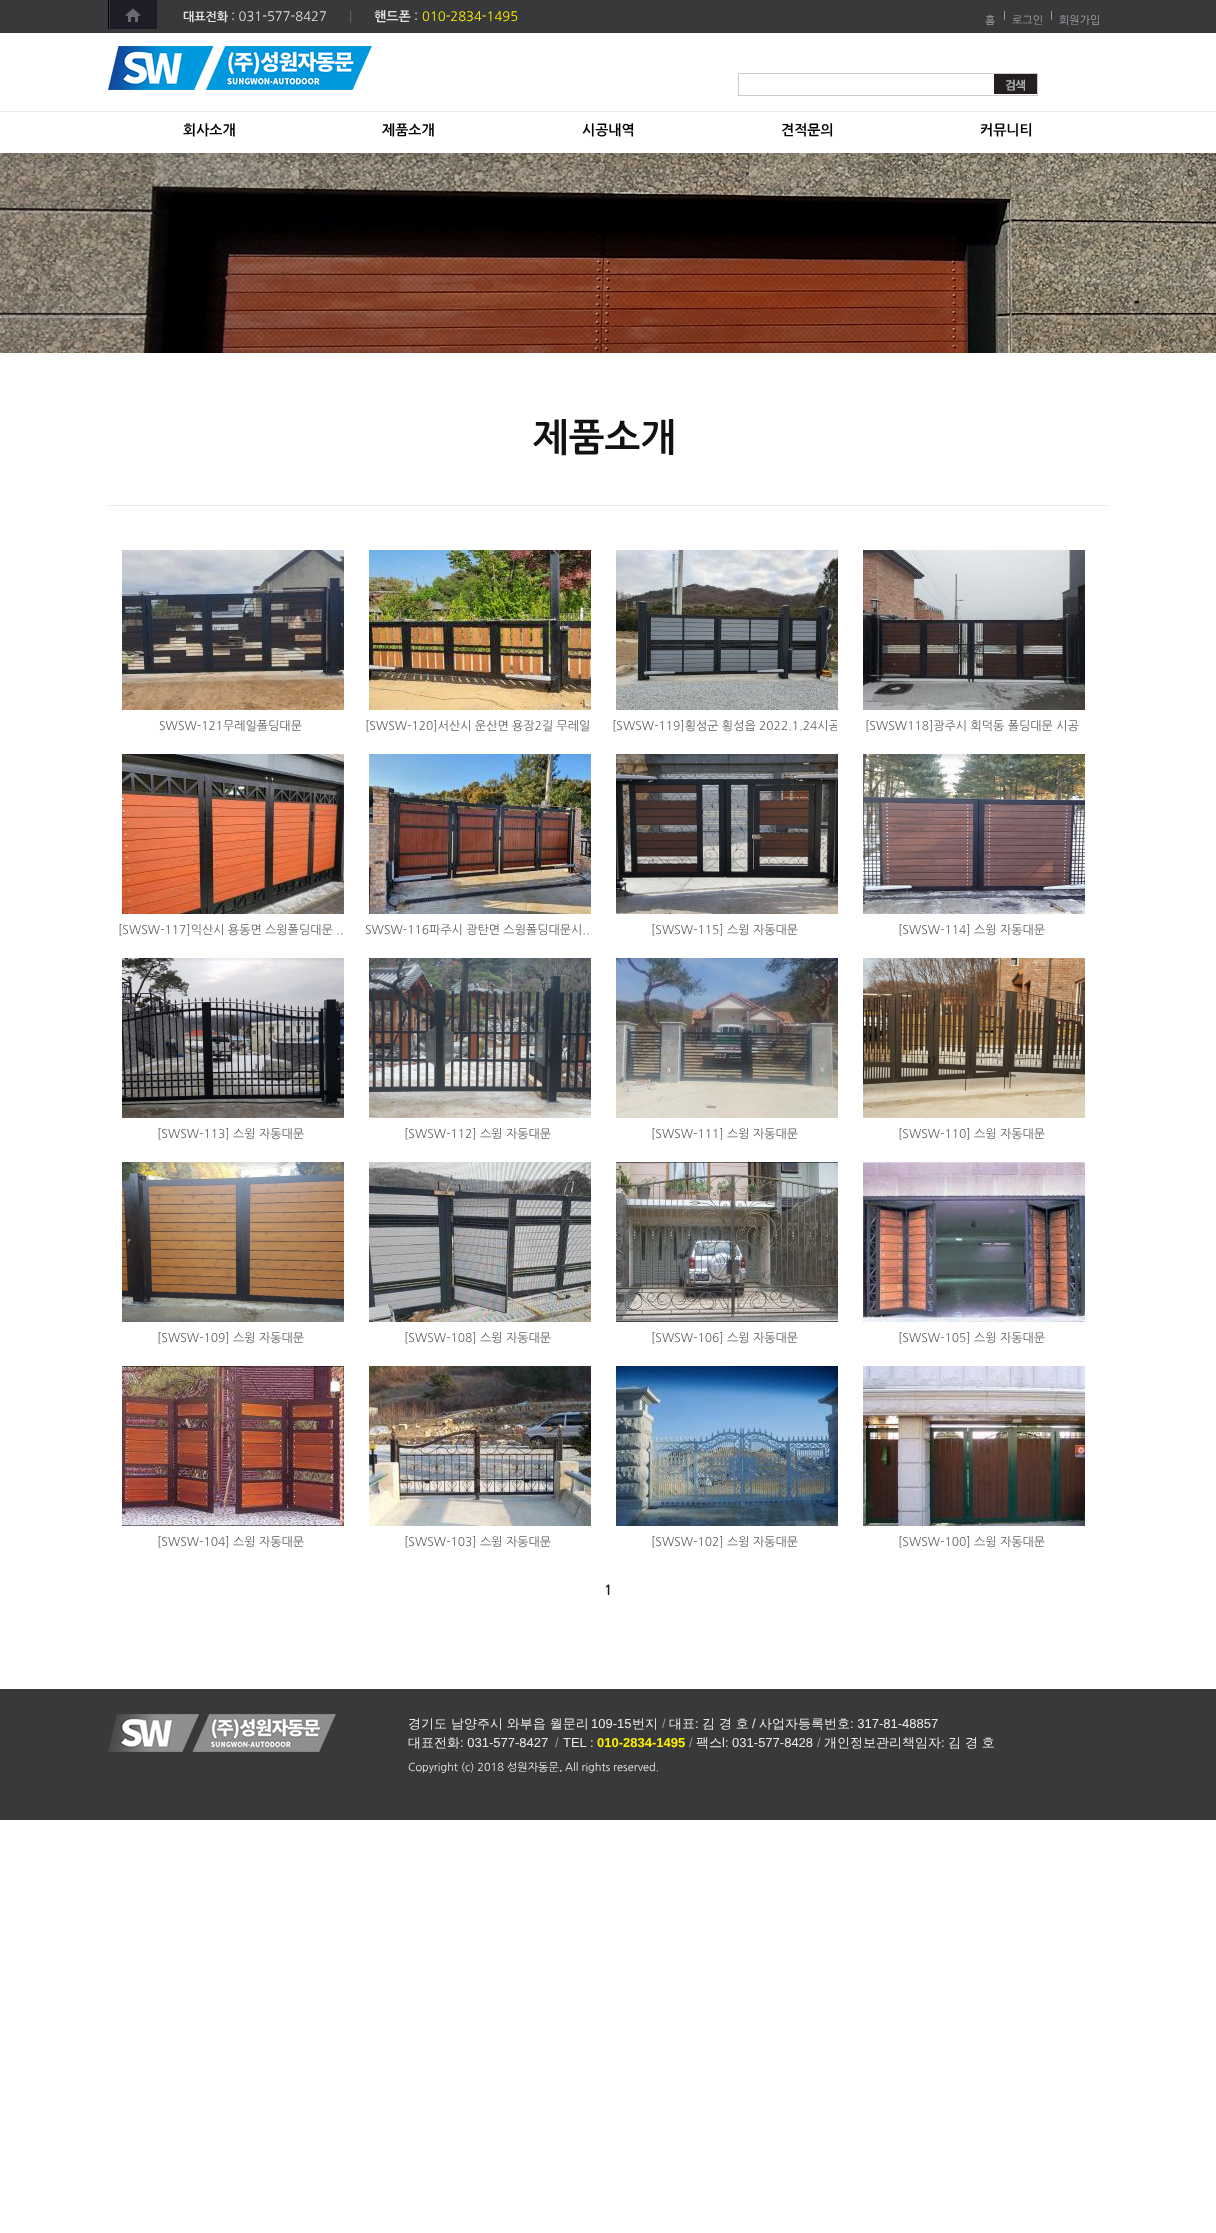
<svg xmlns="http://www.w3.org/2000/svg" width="1216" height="2233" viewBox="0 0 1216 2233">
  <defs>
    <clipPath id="clip1"><rect x="612" y="714" width="225" height="23"/></clipPath>
  </defs>
  <rect width="100%" height="100%" fill="rgb(255,255,255)"/>
  <rect x="0" y="0" width="1216" height="33" fill="rgb(56,57,59)"/>
  <image x="108" y="0" width="49" height="29" href="pic1.png"/>
  <text x="183" y="21" font-family="NanumGothic" font-size="12" font-weight="bold" fill="rgb(225,225,225)">대표전화</text>
  <text x="231" y="21" font-family="NanumGothic" font-size="13" fill="rgb(225,225,225)">: 031-577-8427</text>
  <text x="349" y="21" font-family="NanumGothic" font-size="13" fill="rgb(99,99,99)">|</text>
  <text x="374" y="21" font-family="NanumGothic" font-size="13" font-weight="bold" fill="rgb(225,225,225)">핸드폰</text>
  <text x="414" y="21" font-family="NanumGothic" font-size="13" fill="rgb(225,225,225)">:</text>
  <text x="422" y="21" font-family="NanumGothic" font-size="13" fill="rgb(255,239,0)">010-2834-1495</text>
  <text x="985" y="24" font-family="NanumGothic" font-size="11" fill="rgb(161,161,164)">홈</text>
  <rect x="1004" y="11" width="1" height="9" fill="rgb(153,153,153)"/>
  <text x="1012" y="24" font-family="NanumGothic" font-size="11" fill="rgb(161,161,164)">로그인</text>
  <rect x="1051" y="11" width="1" height="9" fill="rgb(153,153,153)"/>
  <text x="1059" y="24" font-family="NanumGothic" font-size="11" fill="rgb(161,161,164)">회원가입</text>
  <image x="108" y="46" width="264" height="44" href="pic2.png"/>
  <rect x="738.5" y="73.5" width="299" height="22" fill="none" stroke="rgb(204,204,204)"/>
  <image x="994" y="74" width="43" height="20" href="pic3.png"/>
  <rect x="0" y="111" width="1216" height="1" fill="rgb(237,237,237)"/>
  <g font-family="NanumGothic" font-size="14" font-weight="bold" fill="rgb(0,0,0)">
    <text x="183" y="135">회사소개</text>
    <text x="382" y="135">제품소개</text>
    <text x="582" y="135">시공내역</text>
    <text x="781" y="135">견적문의</text>
    <text x="980" y="135">커뮤니티</text>
  </g>
  <image x="0" y="153" width="1216" height="200" href="pic4.png"/>
  <rect x="108" y="505" width="1000" height="1" fill="rgb(232,232,232)"/>
  <text x="533" y="451" font-family="NanumGothic" font-size="38" font-weight="bold" fill="rgb(18,18,18)">제품소개</text>
  <image x="122" y="550" width="222" height="160" href="pic5.png"/>
  <text x="159" y="730" font-family="NanumGothic" font-size="12" fill="rgb(99,99,99)">SWSW-121무레일폴딩대문</text>
  <image x="369" y="550" width="222" height="160" href="pic6.png"/>
  <text x="365" y="730" font-family="NanumGothic" font-size="12" fill="rgb(99,99,99)">[SWSW-120]서산시 운산면 용장2길 무레일</text>
  <image x="616" y="550" width="222" height="160" href="pic7.png"/>
  <g clip-path="url(#clip1)">
    <text x="612" y="730" font-family="NanumGothic" font-size="12" fill="rgb(99,99,99)">[SWSW-119]횡성군 횡성읍 2022.1.24시공</text>
  </g>
  <image x="863" y="550" width="222" height="160" href="pic8.png"/>
  <text x="865" y="730" font-family="NanumGothic" font-size="12" fill="rgb(99,99,99)">[SWSW118]광주시 회덕동 폴딩대문 시공</text>
  <image x="122" y="754" width="222" height="160" href="pic9.png"/>
  <text x="118" y="934" font-family="NanumGothic" font-size="12" fill="rgb(99,99,99)">[SWSW-117]익산시 용동면 스윙폴딩대문 ..</text>
  <image x="369" y="754" width="222" height="160" href="pic10.png"/>
  <text x="365" y="934" font-family="NanumGothic" font-size="12" fill="rgb(99,99,99)">SWSW-116파주시 광탄면 스윙폴딩대문시..</text>
  <image x="616" y="754" width="222" height="160" href="pic11.png"/>
  <text x="651" y="934" font-family="NanumGothic" font-size="12" fill="rgb(99,99,99)">[SWSW-115] 스윙 자동대문</text>
  <image x="863" y="754" width="222" height="160" href="pic12.png"/>
  <text x="898" y="934" font-family="NanumGothic" font-size="12" fill="rgb(99,99,99)">[SWSW-114] 스윙 자동대문</text>
  <image x="122" y="958" width="222" height="160" href="pic13.png"/>
  <text x="157" y="1138" font-family="NanumGothic" font-size="12" fill="rgb(99,99,99)">[SWSW-113] 스윙 자동대문</text>
  <image x="369" y="958" width="222" height="160" href="pic14.png"/>
  <text x="404" y="1138" font-family="NanumGothic" font-size="12" fill="rgb(99,99,99)">[SWSW-112] 스윙 자동대문</text>
  <image x="616" y="958" width="222" height="160" href="pic15.png"/>
  <text x="651" y="1138" font-family="NanumGothic" font-size="12" fill="rgb(99,99,99)">[SWSW-111] 스윙 자동대문</text>
  <image x="863" y="958" width="222" height="160" href="pic16.png"/>
  <text x="898" y="1138" font-family="NanumGothic" font-size="12" fill="rgb(99,99,99)">[SWSW-110] 스윙 자동대문</text>
  <image x="122" y="1162" width="222" height="160" href="pic17.png"/>
  <text x="157" y="1342" font-family="NanumGothic" font-size="12" fill="rgb(99,99,99)">[SWSW-109] 스윙 자동대문</text>
  <image x="369" y="1162" width="222" height="160" href="pic18.png"/>
  <text x="404" y="1342" font-family="NanumGothic" font-size="12" fill="rgb(99,99,99)">[SWSW-108] 스윙 자동대문</text>
  <image x="616" y="1162" width="222" height="160" href="pic19.png"/>
  <text x="651" y="1342" font-family="NanumGothic" font-size="12" fill="rgb(99,99,99)">[SWSW-106] 스윙 자동대문</text>
  <image x="863" y="1162" width="222" height="160" href="pic20.png"/>
  <text x="898" y="1342" font-family="NanumGothic" font-size="12" fill="rgb(99,99,99)">[SWSW-105] 스윙 자동대문</text>
  <image x="122" y="1366" width="222" height="160" href="pic21.png"/>
  <text x="157" y="1546" font-family="NanumGothic" font-size="12" fill="rgb(99,99,99)">[SWSW-104] 스윙 자동대문</text>
  <image x="369" y="1366" width="222" height="160" href="pic22.png"/>
  <text x="404" y="1546" font-family="NanumGothic" font-size="12" fill="rgb(99,99,99)">[SWSW-103] 스윙 자동대문</text>
  <image x="616" y="1366" width="222" height="160" href="pic23.png"/>
  <text x="651" y="1546" font-family="NanumGothic" font-size="12" fill="rgb(99,99,99)">[SWSW-102] 스윙 자동대문</text>
  <image x="863" y="1366" width="222" height="160" href="pic24.png"/>
  <text x="898" y="1546" font-family="NanumGothic" font-size="12" fill="rgb(99,99,99)">[SWSW-100] 스윙 자동대문</text>
  <text x="604" y="1595" font-family="NanumGothic" font-size="14" font-weight="bold" fill="rgb(28,28,28)">1</text>
  <rect x="0" y="1689" width="1216" height="131" fill="rgb(56,57,59)"/>
  <image x="108" y="1714" width="228" height="38" href="pic25.png"/>
  <text x="408" y="1728" font-family="WenQuanYi Zen Hei" font-size="13" font-weight="500" fill="rgb(235,235,235)">경기도 남양주시 와부읍 월문리</text>
  <text x="591" y="1728" font-family="Liberation Sans" font-size="13" fill="rgb(235,235,235)">109-15</text>
  <text x="632" y="1728" font-family="WenQuanYi Zen Hei" font-size="13" font-weight="500" fill="rgb(235,235,235)">번지</text>
  <text x="662" y="1728" font-family="Liberation Sans" font-size="13" fill="rgb(154,154,154)">/</text>
  <text x="669" y="1728" font-family="WenQuanYi Zen Hei" font-size="13" font-weight="500" fill="rgb(235,235,235)">대표</text>
  <text x="695" y="1728" font-family="Liberation Sans" font-size="13" fill="rgb(235,235,235)">:</text>
  <text x="702" y="1728" font-family="WenQuanYi Zen Hei" font-size="13" font-weight="500" fill="rgb(235,235,235)">김 경 호</text>
  <text x="752" y="1728" font-family="Liberation Sans" font-size="13" fill="rgb(235,235,235)">/</text>
  <text x="759" y="1728" font-family="WenQuanYi Zen Hei" font-size="13" font-weight="500" fill="rgb(235,235,235)">사업자등록번호</text>
  <text x="850" y="1728" font-family="Liberation Sans" font-size="13" fill="rgb(235,235,235)">: 317-81-48857</text>
  <text x="408" y="1747" font-family="WenQuanYi Zen Hei" font-size="13" font-weight="500" fill="rgb(235,235,235)">대표전화</text>
  <text x="460" y="1747" font-family="Liberation Sans" font-size="13" fill="rgb(235,235,235)">: 031-577-8427</text>
  <text x="555" y="1747" font-family="Liberation Sans" font-size="13" fill="rgb(154,154,154)">/</text>
  <text x="563" y="1747" font-family="Liberation Sans" font-size="13" fill="rgb(235,235,235)">TEL :</text>
  <text x="597" y="1747" font-family="Liberation Sans" font-size="13" font-weight="bold" fill="rgb(255,239,0)">010-2834-1495</text>
  <text x="689" y="1747" font-family="Liberation Sans" font-size="13" fill="rgb(154,154,154)">/</text>
  <text x="696" y="1747" font-family="WenQuanYi Zen Hei" font-size="13" font-weight="500" fill="rgb(235,235,235)">팩스</text>
  <text x="722" y="1747" font-family="Liberation Sans" font-size="13" fill="rgb(235,235,235)">l: 031-577-8428</text>
  <text x="817" y="1747" font-family="Liberation Sans" font-size="13" fill="rgb(154,154,154)">/</text>
  <text x="824" y="1747" font-family="WenQuanYi Zen Hei" font-size="13" font-weight="500" fill="rgb(235,235,235)">개인정보관리책임자</text>
  <text x="941" y="1747" font-family="Liberation Sans" font-size="13" fill="rgb(235,235,235)">:</text>
  <text x="948" y="1747" font-family="WenQuanYi Zen Hei" font-size="13" font-weight="500" fill="rgb(235,235,235)">김 경 호</text>
  <text x="408" y="1771" font-family="NanumGothic" font-size="11" fill="rgb(235,235,235)">Copyright (c) 2018 성원자동문</text>
  <text x="559" y="1771" font-family="NanumGothic" font-size="11" font-weight="bold" fill="rgb(235,235,235)">.</text>
  <text x="565" y="1771" font-family="NanumGothic" font-size="11" fill="rgb(235,235,235)">All rights reserved.</text>
</svg>
